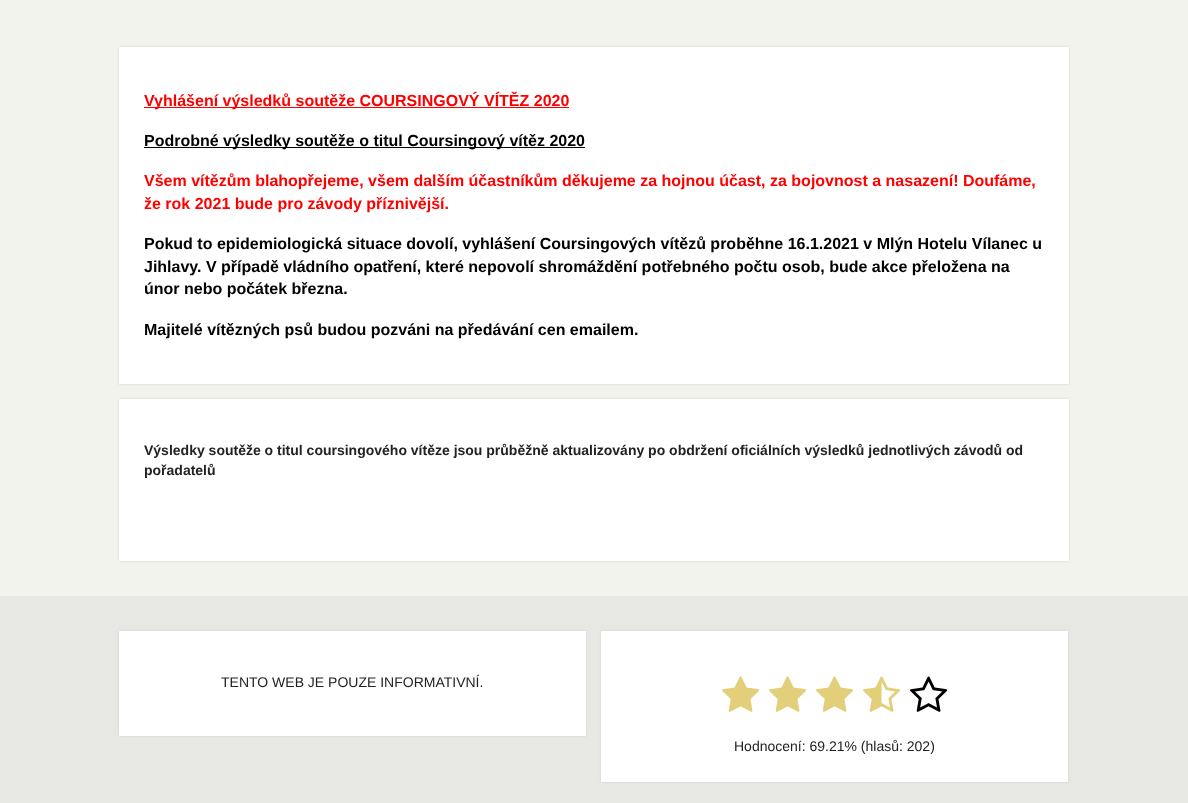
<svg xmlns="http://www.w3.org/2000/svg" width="1188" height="803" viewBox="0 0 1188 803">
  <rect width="100%" height="100%" fill="rgb(242,243,237)"/>
  <rect x="119" y="47" width="950" height="337" fill="rgb(211,206,200)" filter="blur(1px)"/>
  <rect x="119" y="47" width="950" height="337" fill="rgb(255,255,255)"/>
  <rect x="144" y="107" width="425" height="1" fill="rgb(255,0,0)"/>
  <text x="144" y="106" font-family="Liberation Sans" font-size="16" font-weight="bold" fill="rgb(255,0,0)">Vyhlášení výsledků soutěže COURSINGOVÝ VÍTĚZ 2020</text>
  <rect x="144" y="147" width="441" height="1" fill="rgb(0,0,0)"/>
  <text x="144" y="146" font-family="Liberation Sans" font-size="16" font-weight="bold" fill="rgb(0,0,0)">Podrobné výsledky soutěže o titul Coursingový vítěz 2020</text>
  <g font-family="Liberation Sans" font-size="16" font-weight="bold" fill="rgb(255,0,0)">
    <text>
      <tspan x="144" y="186">Všem vítězům blahopřejeme, všem dalším účastníkům děkujeme za hojnou účast, za bojovnost a nasazení! Doufáme,</tspan>
      <tspan x="144" y="209">že rok 2021 bude pro závody příznivější.</tspan>
    </text>
  </g>
  <g font-family="Liberation Sans" font-size="16" font-weight="bold" fill="rgb(0,0,0)">
    <text>
      <tspan x="144" y="249">Pokud to epidemiologická situace dovolí, vyhlášení Coursingových vítězů proběhne 16.1.2021 v Mlýn Hotelu Vílanec u</tspan>
      <tspan x="144" y="272">Jihlavy. V případě vládního opatření, které nepovolí shromáždění potřebného počtu osob, bude akce přeložena na</tspan>
      <tspan x="144" y="294">únor nebo počátek března.</tspan>
    </text>
    <text x="144" y="335">Majitelé vítězných psů budou pozváni na předávání cen emailem.</text>
  </g>
  <rect x="119" y="399" width="950" height="162" fill="rgb(211,206,200)" filter="blur(1px)"/>
  <rect x="119" y="399" width="950" height="162" fill="rgb(255,255,255)"/>
  <g font-family="Liberation Sans" font-size="14" font-weight="bold" fill="rgb(34,34,34)">
    <text>
      <tspan x="144" y="455">Výsledky soutěže o titul coursingového vítěze jsou průběžně aktualizovány po obdržení oficiálních výsledků jednotlivých závodů od</tspan>
      <tspan x="144" y="475">pořadatelů</tspan>
    </text>
  </g>
  <rect x="0" y="596" width="1188" height="207" fill="rgb(231,232,227)"/>
  <rect x="119" y="631" width="467" height="105" fill="rgb(211,206,200)" filter="blur(1px)"/>
  <rect x="119" y="631" width="467" height="105" fill="rgb(255,255,255)"/>
  <text x="221" y="687" font-family="Liberation Sans" font-size="14" fill="rgb(34,34,34)">TENTO WEB JE POUZE INFORMATIVNÍ.</text>
  <rect x="601" y="631" width="467" height="151" fill="rgb(211,206,200)" filter="blur(1px)"/>
  <rect x="601" y="631" width="467" height="151" fill="rgb(255,255,255)"/>
  <image x="722" y="676" width="38" height="36" href="pic1.png"/>
  <image x="769" y="676" width="38" height="36" href="pic1.png"/>
  <image x="816" y="676" width="38" height="36" href="pic1.png"/>
  <image x="863" y="676" width="38" height="36" href="pic2.png"/>
  <image x="910" y="676" width="38" height="36" href="pic3.png"/>
  <text x="734" y="751" font-family="Liberation Sans" font-size="14" fill="rgb(34,34,34)">Hodnocení: 69.21% (hlasů: 202)</text>
</svg>
